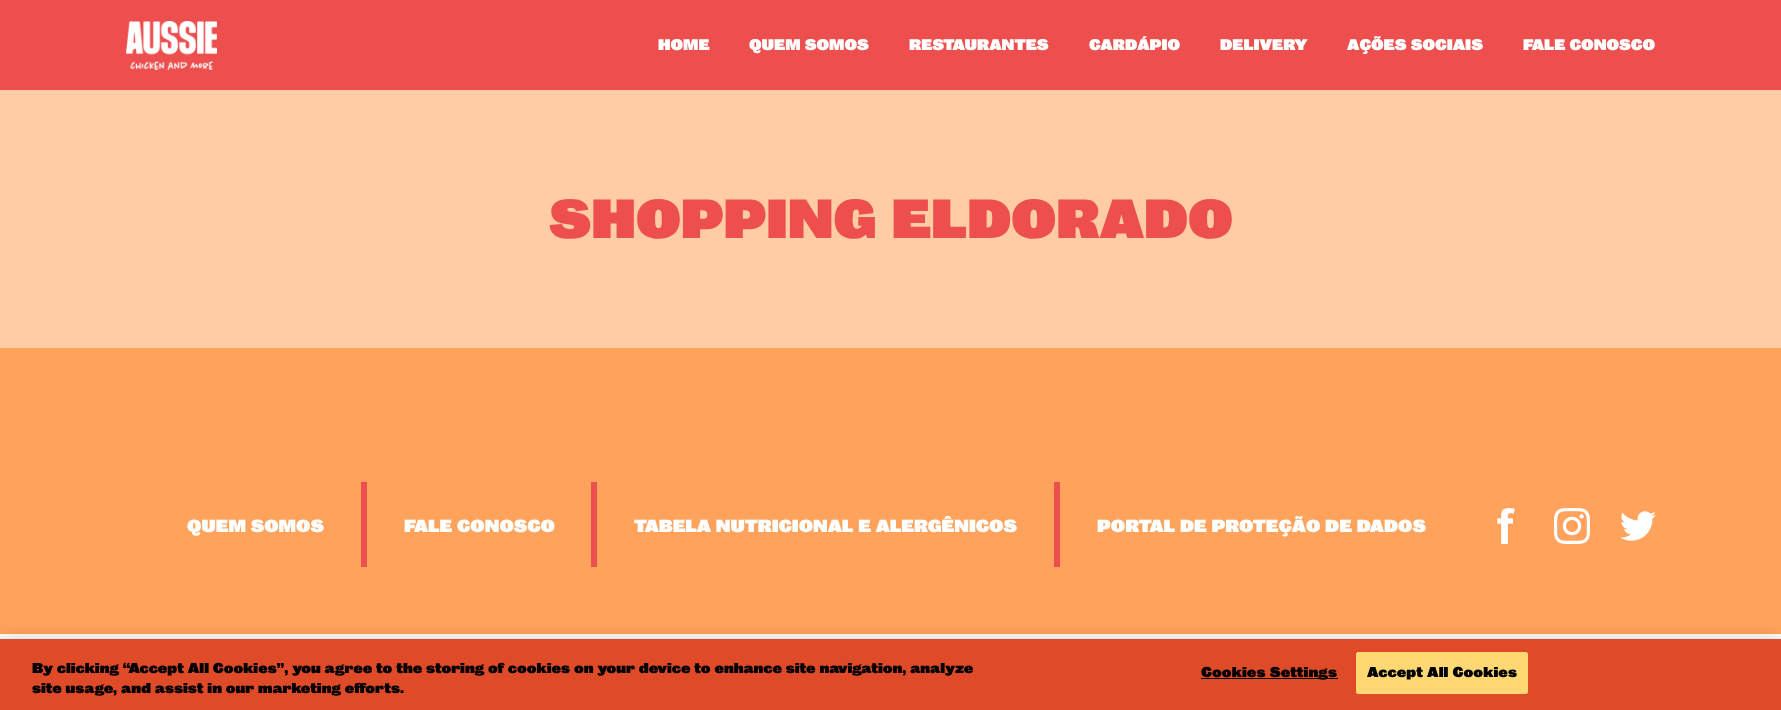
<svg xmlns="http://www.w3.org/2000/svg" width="1781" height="710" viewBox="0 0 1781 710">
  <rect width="100%" height="100%" fill="rgb(255,255,255)"/>
  <rect x="0" y="0" width="1781" height="90" fill="rgb(237,79,79)"/>
  <image x="126" y="21" width="91" height="49" href="pic1.png"/>
  <g font-family="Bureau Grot" font-size="14" font-weight="800" fill="rgb(255,255,255)">
    <text x="658" y="50">HOME</text>
    <text x="749" y="50">QUEM SOMOS</text>
    <text x="909" y="50">RESTAURANTES</text>
    <text x="1089" y="50">CARDÁPIO</text>
    <text x="1220" y="50">DELIVERY</text>
    <text x="1347" y="50">AÇÕES SOCIAIS</text>
    <text x="1523" y="50">FALE CONOSCO</text>
  </g>
  <rect x="0" y="90" width="1781" height="258" fill="rgb(255,204,163)"/>
  <text x="549" y="238" font-family="Bureau Grot" font-size="50" font-weight="800" fill="rgb(237,79,79)">SHOPPING ELDORADO</text>
  <rect x="0" y="348" width="1781" height="286" fill="rgb(255,163,92)"/>
  <text x="187" y="532" font-family="Bureau Grot" font-size="16" font-weight="800" fill="rgb(255,255,255)">QUEM SOMOS</text>
  <rect x="361" y="482" width="6" height="85" fill="rgb(237,79,79)"/>
  <text x="404" y="532" font-family="Bureau Grot" font-size="16" font-weight="800" fill="rgb(255,255,255)">FALE CONOSCO</text>
  <rect x="591" y="482" width="6" height="85" fill="rgb(237,79,79)"/>
  <text x="634" y="532" font-family="Bureau Grot" font-size="16" font-weight="800" fill="rgb(255,255,255)">TABELA NUTRICIONAL E ALERGÊNICOS</text>
  <rect x="1054" y="482" width="6" height="85" fill="rgb(237,79,79)"/>
  <text x="1097" y="532" font-family="Bureau Grot" font-size="16" font-weight="800" fill="rgb(255,255,255)">PORTAL DE PROTEÇÃO DE DADOS</text>
  <image x="1497" y="508" width="18" height="36" href="pic2.png"/>
  <image x="1554" y="508" width="36" height="36" href="pic3.png"/>
  <image x="1620" y="511" width="36" height="30" href="pic4.png"/>
  <rect x="0" y="639" width="1781" height="71" fill="rgba(0,0,0,0.2)" filter="blur(9px)"/>
  <rect x="0" y="639" width="1781" height="71" fill="rgb(223,74,40)"/>
  <g font-family="Bureau Grot" font-size="13" font-weight="800" fill="rgb(0,0,0)">
    <text>
      <tspan x="32" y="673">By clicking “Accept All Cookies”, you agree to the storing of cookies on your device to enhance site navigation, analyze</tspan>
      <tspan x="32" y="693">site usage, and assist in our marketing efforts.</tspan>
    </text>
  </g>
  <rect x="1201" y="678" width="137" height="1" fill="rgb(0,0,0)"/>
  <text x="1201" y="677" font-family="Bureau Grot" font-size="13" font-weight="800" letter-spacing="0.1" fill="rgb(0,0,0)">Cookies Settings</text>
  <rect x="1356.5" y="652.5" width="171" height="41" rx="1.5" fill="rgb(255,216,115)" stroke="rgb(255,216,115)"/>
  <text x="1367" y="677" font-family="Bureau Grot" font-size="13" font-weight="800" letter-spacing="0.1" fill="rgb(0,0,0)">Accept All Cookies</text>
</svg>
